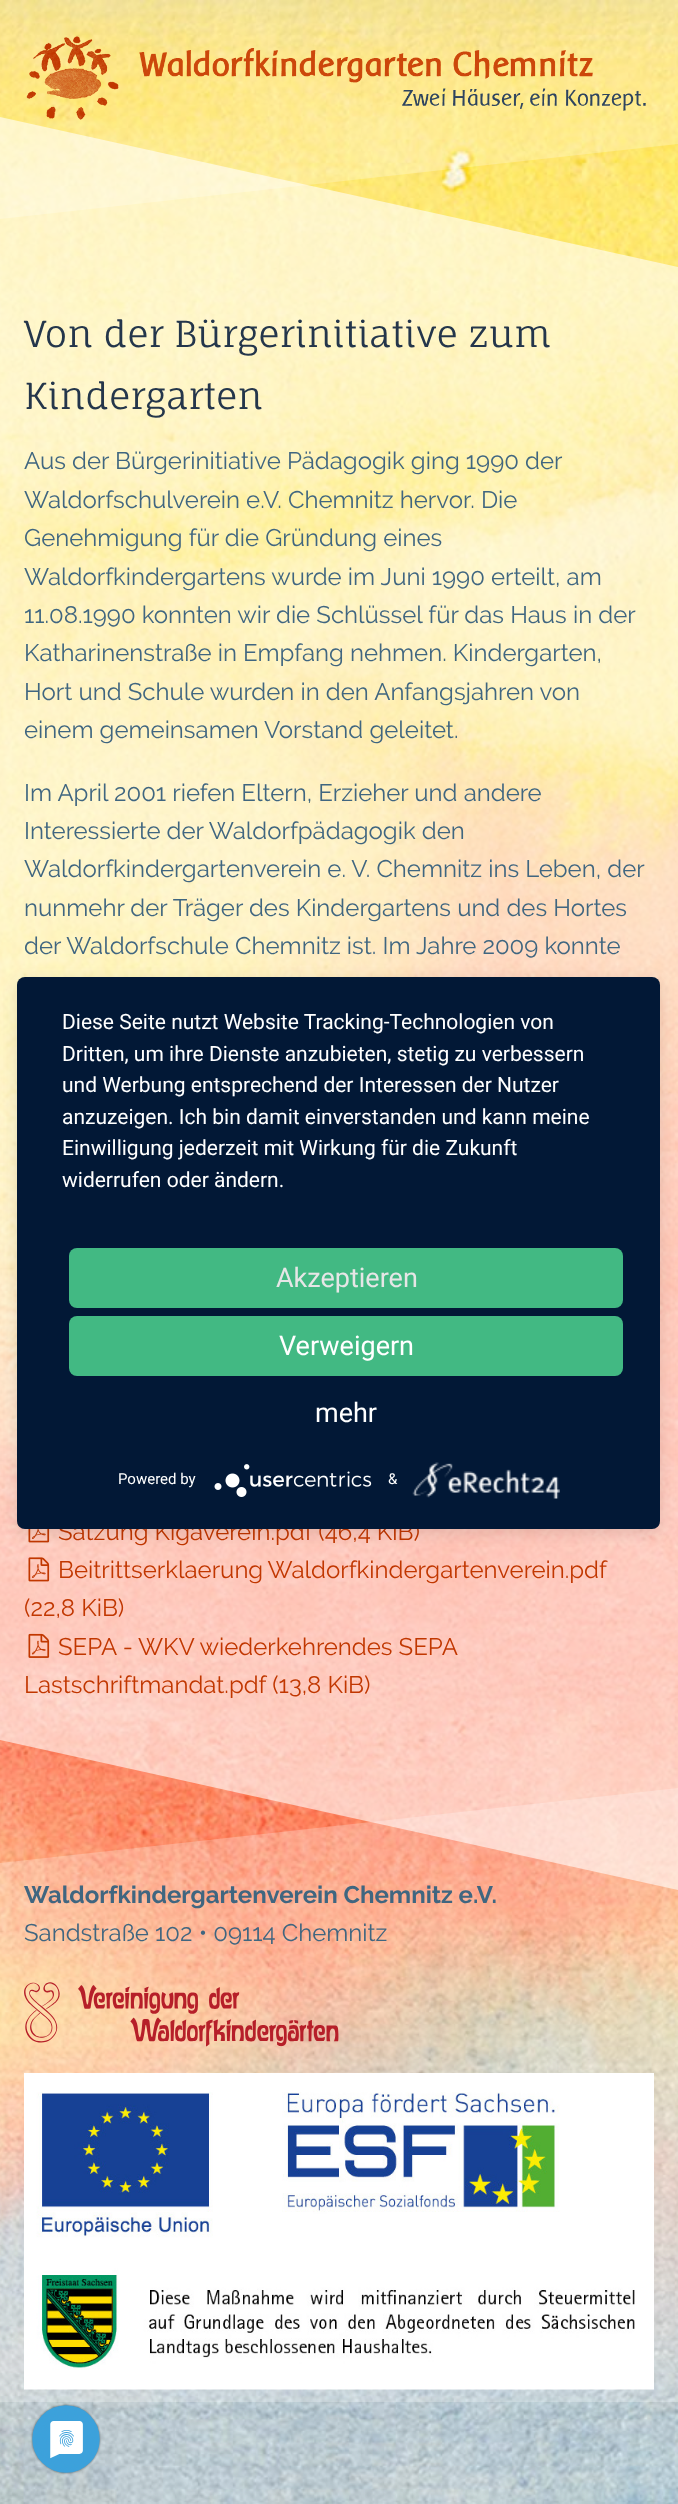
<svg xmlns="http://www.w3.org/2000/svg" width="678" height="2504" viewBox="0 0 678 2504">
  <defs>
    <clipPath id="clip1"><rect x="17" y="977" width="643" height="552" rx="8"/></clipPath>
  </defs>
  <rect width="100%" height="100%" fill="rgb(255,255,255)"/>
  <image x="0" y="0" width="678" height="2504" href="pic1.png"/>
  <rect x="0" y="0" width="678" height="144" fill="rgba(255,255,255,0.25)"/>
  <image x="26" y="36" width="620" height="84" href="pic2.png"/>
  <path d="M0 144H678L0 219Z" fill="rgba(255,255,255,0.25)"/>
  <path d="M678 267H0V117Z" fill="rgba(255,255,255,0.6)"/>
  <rect x="0" y="267" width="678" height="1473" fill="rgba(255,255,255,0.6)"/>
  <g font-family="Fauna One" font-size="36" fill="rgb(36,54,75)">
    <text>
      <tspan x="24" y="347">Von der Bürgerinitiative zum</tspan>
      <tspan x="24" y="409">Kindergarten</tspan>
    </text>
  </g>
  <g font-family="Raleway" font-size="24" fill="rgb(64,102,128)">
    <text>
      <tspan x="24" y="469">Aus der Bürgerinitiative Pädagogik ging 1990 der</tspan>
      <tspan x="24" y="508">Waldorfschulverein e.V. Chemnitz hervor. Die</tspan>
      <tspan x="24" y="546">Genehmigung für die Gründung eines</tspan>
      <tspan x="24" y="585">Waldorfkindergartens wurde im Juni 1990 erteilt, am</tspan>
      <tspan x="24" y="623">11.08.1990 konnten wir die Schlüssel für das Haus in der</tspan>
      <tspan x="24" y="661">Katharinenstraße in Empfang nehmen. Kindergarten,</tspan>
      <tspan x="24" y="700">Hort und Schule wurden in den Anfangsjahren von</tspan>
      <tspan x="24" y="738">einem gemeinsamen Vorstand geleitet.</tspan>
    </text>
    <text>
      <tspan x="24" y="801">Im April 2001 riefen Eltern, Erzieher und andere</tspan>
      <tspan x="24" y="839">Interessierte der Waldorfpädagogik den</tspan>
      <tspan x="24" y="877">Waldorfkindergartenverein e. V. Chemnitz ins Leben, der</tspan>
      <tspan x="24" y="916">nunmehr der Träger des Kindergartens und des Hortes</tspan>
      <tspan x="24" y="954">der Waldorfschule Chemnitz ist. Im Jahre 2009 konnte</tspan>
    </text>
  </g>
  <image x="28" y="1529" width="22" height="14" href="pic3.png"/>
  <text x="58" y="1540" font-family="Raleway" font-size="24" fill="rgb(193,55,0)">Satzung Kigaverein.pdf (46,4 KiB)</text>
  <image x="28" y="1557" width="22" height="25" href="pic4.png"/>
  <g font-family="Raleway" font-size="24" fill="rgb(193,55,0)">
    <text x="58" y="1578" word-spacing="-1">Beitrittserklaerung Waldorfkindergartenverein.pdf</text>
    <text x="24" y="1616">(22,8 KiB)</text>
  </g>
  <image x="28" y="1633" width="22" height="25" href="pic5.png"/>
  <g font-family="Raleway" font-size="24" fill="rgb(193,55,0)">
    <text x="58" y="1655">SEPA -</text>
    <text x="138" y="1655">WKV wiederkehrendes SEPA</text>
    <text x="24" y="1693">Lastschriftmandat.pdf (13,8 KiB)</text>
  </g>
  <path d="M0 1740H678V1890Z" fill="rgba(255,255,255,0.6)"/>
  <path d="M678 1863H0L678 1788Z" fill="rgba(255,255,255,0.25)"/>
  <rect x="0" y="1863" width="678" height="539" fill="rgba(255,255,255,0.25)"/>
  <text x="24" y="1903" font-family="Raleway" font-size="24" font-weight="bold" fill="rgb(64,102,128)">Waldorfkindergartenverein Chemnitz e.V.</text>
  <text x="24" y="1941" font-family="Raleway" font-size="24" fill="rgb(64,102,128)">Sandstraße 102 • 09114 Chemnitz</text>
  <image x="24" y="1982" width="315" height="65" href="pic6.png"/>
  <image x="24" y="2073" width="630" height="317" href="pic7.png"/>
  <rect x="17" y="981" width="643" height="552" rx="8" fill="rgba(0,0,0,0.1)" filter="blur(7.5px)"/>
  <g clip-path="url(#clip1)">
    <rect x="17" y="986" width="643" height="552" fill="rgba(0,0,0,0.3)" filter="blur(27px)"/>
  </g>
  <rect x="17" y="977" width="643" height="552" rx="8" fill="rgb(2,24,54)"/>
  <g font-family="Roboto" font-size="21" fill="rgb(255,255,255)">
    <text>
      <tspan x="62" y="1029">Diese Seite nutzt Website Tracking-Technologien von</tspan>
      <tspan x="62" y="1061">Dritten, um ihre Dienste anzubieten, stetig zu verbessern</tspan>
      <tspan x="62" y="1092">und Werbung entsprechend der Interessen der Nutzer</tspan>
      <tspan x="62" y="1124">anzuzeigen. Ich bin damit einverstanden und kann meine</tspan>
      <tspan x="62" y="1155">Einwilligung jederzeit mit Wirkung für die Zukunft</tspan>
      <tspan x="62" y="1187">widerrufen oder ändern.</tspan>
    </text>
  </g>
  <rect x="69" y="1248" width="554" height="60" rx="8" fill="rgb(66,185,131)"/>
  <text x="276" y="1287" font-family="Roboto" font-size="27" fill="rgb(230,230,230)">Akzeptieren</text>
  <rect x="69" y="1316" width="554" height="60" rx="8" fill="rgb(66,185,131)"/>
  <g font-family="Roboto" font-size="27" fill="rgb(255,255,255)">
    <text x="279" y="1355">Verweigern</text>
    <text x="315" y="1422">mehr</text>
  </g>
  <text x="118" y="1484" font-family="Roboto" font-size="15" fill="rgb(255,255,255)">Powered by</text>
  <image x="214" y="1464" width="158" height="33" href="pic8.png"/>
  <text x="388" y="1484" font-family="Roboto" font-size="15" fill="rgb(255,255,255)">&amp;</text>
  <image x="412" y="1462" width="148" height="37" href="pic9.png"/>
  <image x="30" y="2403" width="72" height="72" href="pic10.png"/>
</svg>
